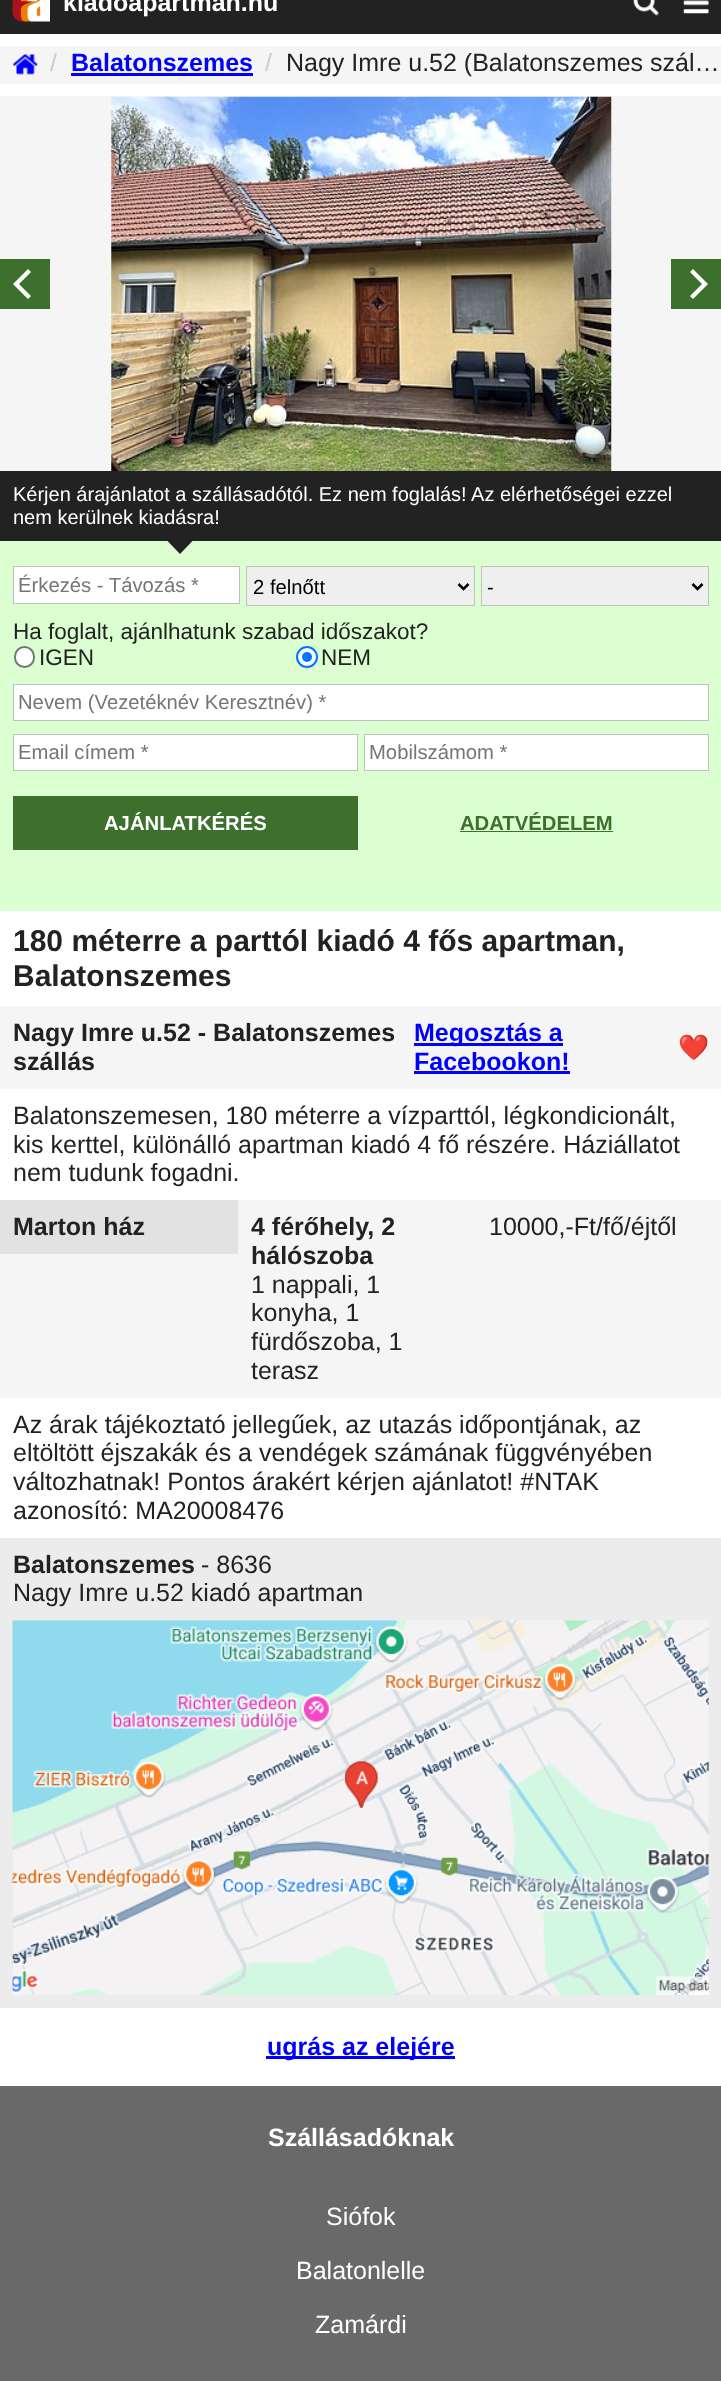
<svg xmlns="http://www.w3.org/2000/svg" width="721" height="2381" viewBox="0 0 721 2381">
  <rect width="100%" height="100%" fill="rgb(105,105,105)"/>
  <rect x="0" y="34" width="721" height="2052" fill="rgb(255,255,255)"/>
  <rect x="0" y="0" width="721" height="34" fill="rgb(34,34,34)"/>
  <image x="12" y="0" width="38" height="22" href="pic1.png"/>
  <text x="63" y="11" font-family="Liberation Sans" font-size="25" font-weight="bold" fill="rgb(255,255,255)">kiadoapartman.hu</text>
  <image x="633" y="0" width="26" height="16" href="pic2.png"/>
  <image x="683" y="0" width="26" height="14" href="pic3.png"/>
  <rect x="0" y="46" width="721" height="38" fill="rgb(245,245,245)"/>
  <image x="12" y="54" width="26" height="21" href="pic4.png"/>
  <text x="50" y="71" font-family="Liberation Sans" font-size="25" fill="rgb(204,204,204)">/</text>
  <text x="71" y="71" font-family="Liberation Sans" font-size="25" font-weight="bold" fill="rgb(0,0,255)">Balatonszemes</text>
  <rect x="71" y="73" width="182" height="3" fill="rgb(0,0,255)"/>
  <text x="265" y="71" font-family="Liberation Sans" font-size="25" fill="rgb(204,204,204)">/</text>
  <text x="286" y="71" font-family="Liberation Sans" font-size="25" fill="rgb(34,34,34)">Nagy Imre u.52 (Balatonszemes szál…</text>
  <rect x="0" y="96" width="721" height="375" fill="rgb(245,245,245)"/>
  <rect x="0" y="259" width="50" height="50" fill="rgb(61,111,45)"/>
  <path d="M13 284L28 299L31 296L19 284L31 272L28 269Z" fill="rgb(255,255,255)"/>
  <image x="111" y="96" width="501" height="375" href="pic5.png"/>
  <rect x="671" y="259" width="50" height="50" fill="rgb(61,111,45)"/>
  <path d="M708 284L693 269L690 272L702 284L690 296L693 299Z" fill="rgb(255,255,255)"/>
  <rect x="0" y="471" width="721" height="70" fill="rgb(34,34,34)"/>
  <g font-family="Liberation Sans" font-size="20" fill="rgb(255,255,255)">
    <text>
      <tspan x="13" y="501">Kérjen árajánlatot a szállásadótól. Ez nem foglalás! Az elérhetőségei ezzel</tspan>
      <tspan x="13" y="524">nem kerülnek kiadásra!</tspan>
    </text>
  </g>
  <rect x="0" y="541" width="721" height="370" fill="rgb(220,255,209)"/>
  <path d="M167.5 541H192.5L180 554Z" fill="rgb(34,34,34)"/>
  <rect x="13.5" y="566.5" width="226" height="37" fill="rgb(255,255,255)" stroke="rgb(192,192,192)"/>
  <text x="18" y="592" font-family="Liberation Sans" font-size="20.25" fill="rgb(117,117,117)">Érkezés - Távozás *</text>
  <rect x="246.5" y="566.5" width="228" height="39" fill="rgb(239,239,239)" stroke="rgb(192,192,192)"/>
  <path d="M458.5 584L463.5 589L468.5 584" fill="none" stroke="rgb(0,0,0)" stroke-width="2.5"/>
  <text x="253" y="594" font-family="Liberation Sans" font-size="20.25" fill="rgb(0,0,0)">2 felnőtt</text>
  <rect x="481.5" y="566.5" width="227" height="39" fill="rgb(239,239,239)" stroke="rgb(192,192,192)"/>
  <path d="M692.5 584L697.5 589L702.5 584" fill="none" stroke="rgb(0,0,0)" stroke-width="2.5"/>
  <text x="487" y="594" font-family="Liberation Sans" font-size="20.25" fill="rgb(0,0,0)">-</text>
  <text x="13" y="639" font-family="Liberation Sans" font-size="22.5" fill="rgb(34,34,34)">Ha foglalt, ajánlhatunk szabad időszakot?</text>
  <rect x="15" y="647" width="19" height="20" rx="9.5" fill="rgb(255,255,255)" stroke="rgb(118,118,118)" stroke-width="2"/>
  <text x="39" y="665" font-family="Liberation Sans" font-size="22.5" fill="rgb(34,34,34)">IGEN</text>
  <circle cx="307" cy="657" r="10" fill="rgb(255,255,255)" stroke="rgb(0,117,255)" stroke-width="2"/>
  <circle cx="307" cy="657" r="5" fill="rgb(0,117,255)"/>
  <text x="321" y="665" font-family="Liberation Sans" font-size="22.5" fill="rgb(34,34,34)">NEM</text>
  <rect x="13.5" y="684.5" width="695" height="36" fill="rgb(255,255,255)" stroke="rgb(192,192,192)"/>
  <text x="18" y="709" font-family="Liberation Sans" font-size="20.25" fill="rgb(117,117,117)">Nevem (Vezetéknév Keresztnév) *</text>
  <rect x="13.5" y="734.5" width="344" height="36" fill="rgb(255,255,255)" stroke="rgb(192,192,192)"/>
  <text x="18" y="759" font-family="Liberation Sans" font-size="20.25" fill="rgb(117,117,117)">Email címem *</text>
  <rect x="364.5" y="734.5" width="344" height="36" fill="rgb(255,255,255)" stroke="rgb(192,192,192)"/>
  <text x="369" y="759" font-family="Liberation Sans" font-size="20.25" fill="rgb(117,117,117)">Mobilszámom *</text>
  <rect x="13" y="796" width="345" height="54" fill="rgb(61,111,45)"/>
  <text x="104" y="830" font-family="Liberation Sans" font-size="20.25" font-weight="bold" fill="rgb(255,255,255)">AJÁNLATKÉRÉS</text>
  <text x="460" y="830" font-family="Liberation Sans" font-size="20.25" font-weight="bold" fill="rgb(61,111,45)">ADATVÉDELEM</text>
  <rect x="460" y="831" width="153" height="1" fill="rgb(61,111,45)"/>
  <g font-family="Liberation Sans" font-size="30" font-weight="bold" fill="rgb(34,34,34)">
    <text>
      <tspan x="13" y="951">180 méterre a parttól kiadó 4 fős apartman,</tspan>
      <tspan x="13" y="986">Balatonszemes</tspan>
    </text>
  </g>
  <rect x="0" y="1006" width="721" height="83" fill="rgb(245,245,245)"/>
  <g font-family="Liberation Sans" font-size="25" font-weight="bold" fill="rgb(34,34,34)">
    <text>
      <tspan x="13" y="1041">Nagy Imre u.52 - Balatonszemes</tspan>
      <tspan x="13" y="1070">szállás</tspan>
    </text>
  </g>
  <rect x="414" y="1043" width="149" height="3" fill="rgb(0,0,255)"/>
  <g font-family="Liberation Sans" font-size="25" font-weight="bold" fill="rgb(0,0,255)">
    <text>
      <tspan x="414" y="1041">Megosztás a</tspan>
      <tspan x="414" y="1070">Facebookon!</tspan>
    </text>
  </g>
  <rect x="414" y="1071" width="156" height="3" fill="rgb(0,0,255)"/>
  <text x="678" y="1056" font-family="Noto Color Emoji" font-size="25" fill="rgb(34,34,34)">❤️</text>
  <g font-family="Liberation Sans" font-size="25" fill="rgb(34,34,34)">
    <text>
      <tspan x="13" y="1124">Balatonszemesen, 180 méterre a vízparttól, légkondicionált,</tspan>
      <tspan x="13" y="1153">kis kerttel, különálló apartman kiadó 4 fő részére. Háziállatot</tspan>
      <tspan x="13" y="1181">nem tudunk fogadni.</tspan>
    </text>
  </g>
  <rect x="0" y="1200" width="721" height="198" fill="rgb(245,245,245)"/>
  <rect x="0" y="1200" width="238" height="54" fill="rgb(226,226,226)"/>
  <g font-family="Liberation Sans" font-size="25" font-weight="bold" fill="rgb(34,34,34)">
    <text x="13" y="1235">Marton ház</text>
    <text>
      <tspan x="251" y="1235">4 férőhely, 2</tspan>
      <tspan x="251" y="1264">hálószoba</tspan>
    </text>
  </g>
  <g font-family="Liberation Sans" font-size="25" fill="rgb(34,34,34)">
    <text>
      <tspan x="251" y="1293">1 nappali, 1</tspan>
      <tspan x="251" y="1321">konyha, 1</tspan>
      <tspan x="251" y="1350">fürdőszoba, 1</tspan>
      <tspan x="251" y="1379">terasz</tspan>
    </text>
    <text x="489" y="1235">10000,-Ft/fő/éjtől</text>
    <text>
      <tspan x="13" y="1433">Az árak tájékoztató jellegűek, az utazás időpontjának, az</tspan>
      <tspan x="13" y="1461">eltöltött éjszakák és a vendégek számának függvényében</tspan>
      <tspan x="13" y="1490">változhatnak! Pontos árakért kérjen ajánlatot! #NTAK</tspan>
      <tspan x="13" y="1519">azonosító: MA20008476</tspan>
    </text>
  </g>
  <rect x="0" y="1538" width="721" height="470" fill="rgb(236,236,237)"/>
  <text x="13" y="1573" font-family="Liberation Sans" font-size="25" font-weight="bold" fill="rgb(34,34,34)">Balatonszemes</text>
  <g font-family="Liberation Sans" font-size="25" fill="rgb(34,34,34)">
    <text x="201" y="1573">- 8636</text>
    <text x="13" y="1601">Nagy Imre u.52 kiadó apartman</text>
  </g>
  <image x="12" y="1620" width="697" height="376" href="pic6.png"/>
  <rect x="266" y="2056" width="189" height="3" fill="rgb(0,0,255)"/>
  <text x="267" y="2055" font-family="Liberation Sans" font-size="25" font-weight="bold" fill="rgb(0,0,255)">ugrás az elejére</text>
  <text x="268" y="2146" font-family="Liberation Sans" font-size="25" font-weight="bold" fill="rgb(255,255,255)">Szállásadóknak</text>
  <g font-family="Liberation Sans" font-size="25" fill="rgb(255,255,255)">
    <text x="326" y="2225">Siófok</text>
    <text x="296" y="2279">Balatonlelle</text>
    <text x="315" y="2333">Zamárdi</text>
  </g>
</svg>
